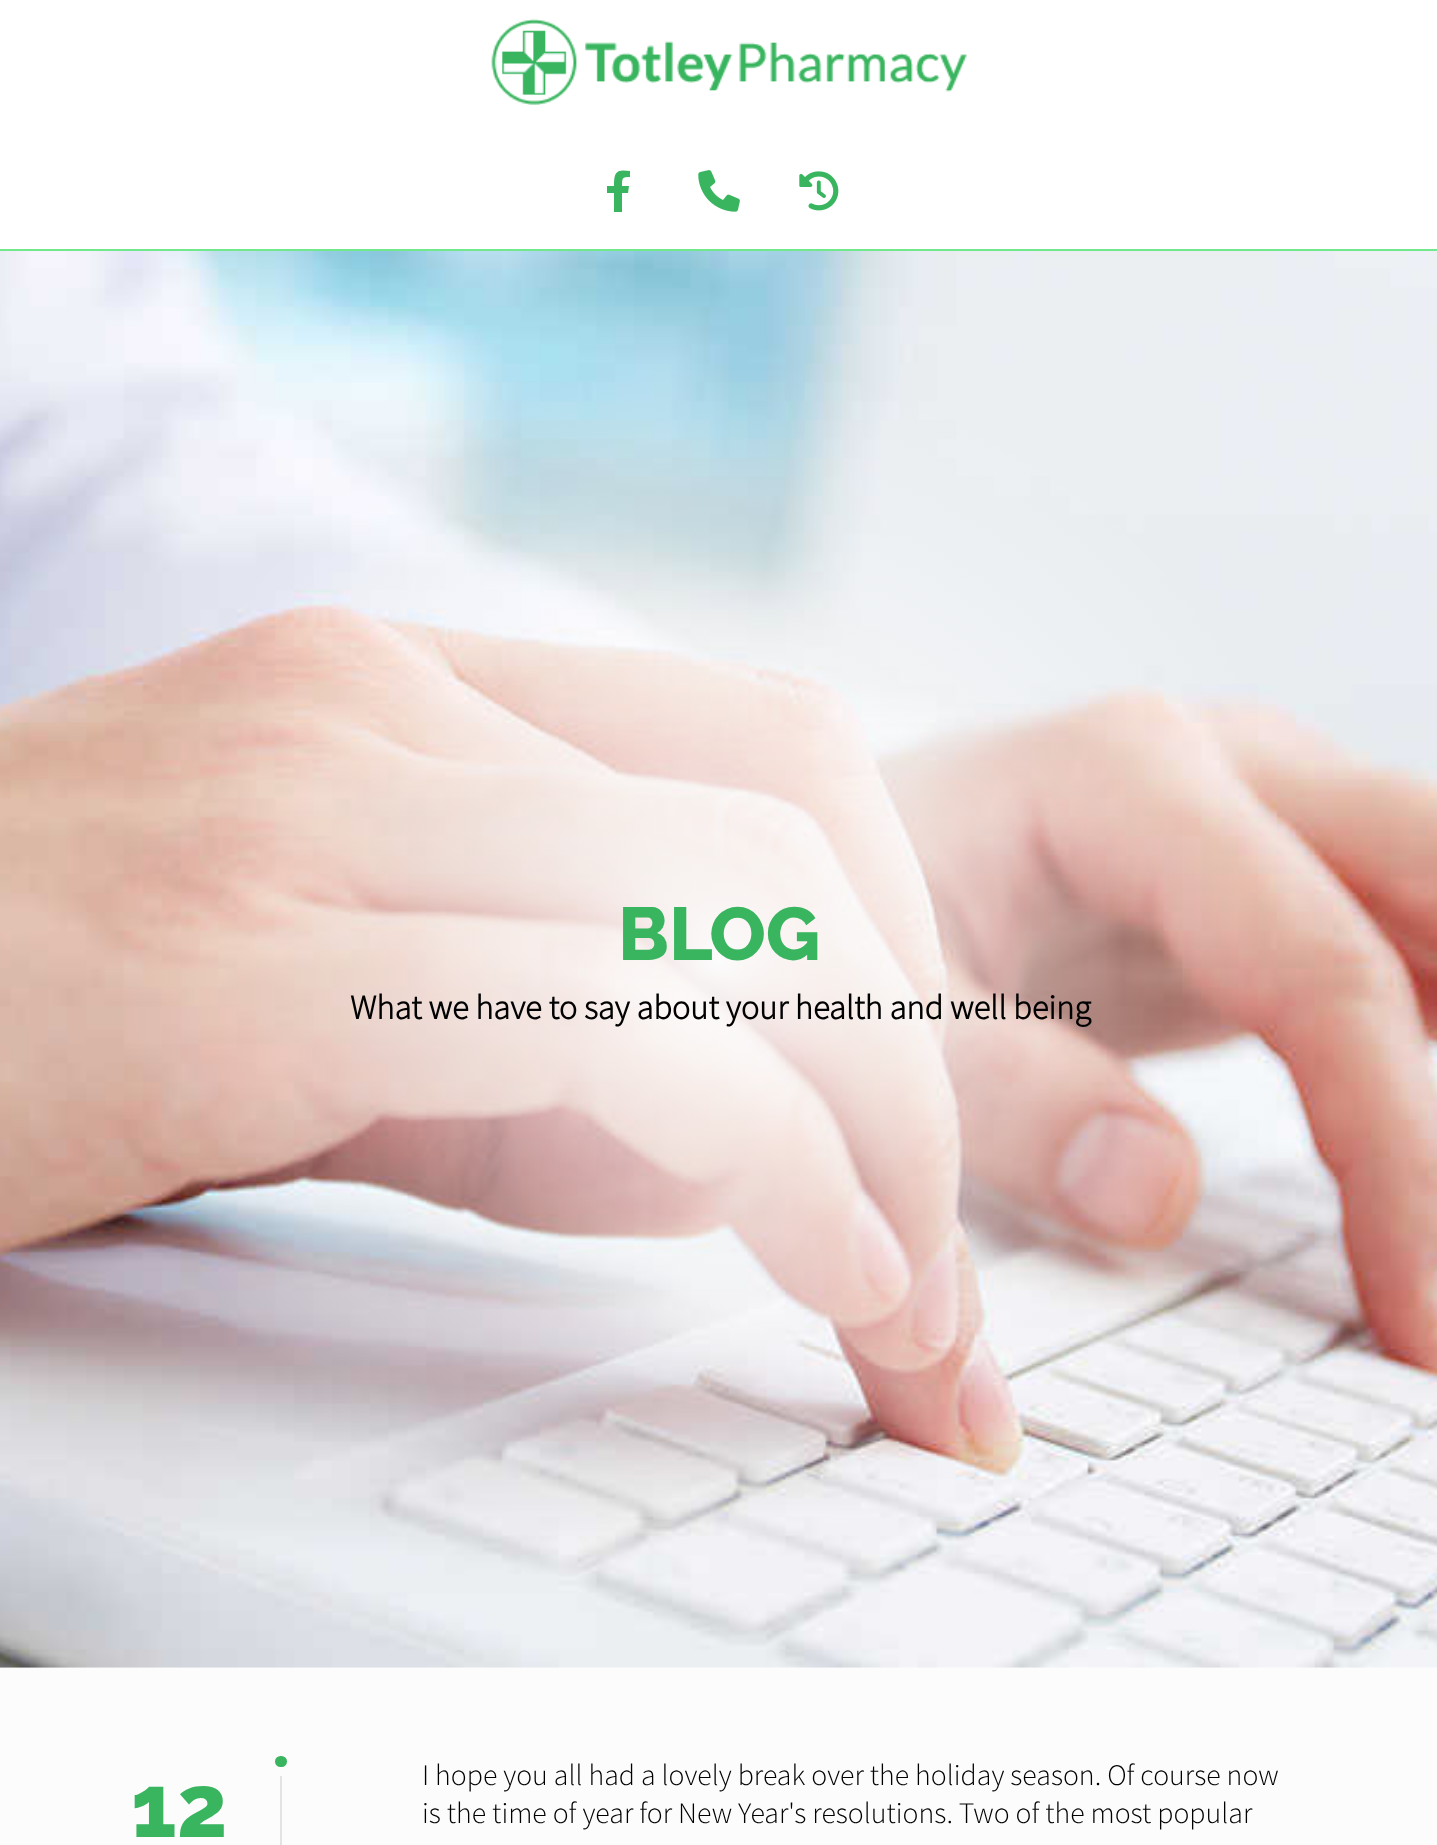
<svg xmlns="http://www.w3.org/2000/svg" width="1437" height="1845" viewBox="0 0 1437 1845">
  <defs>
    <radialGradient id="g1" gradientUnits="userSpaceOnUse" cx="0" cy="0" r="1" gradientTransform="matrix(1017 0 0 1002 719 959)"><stop offset="0" stop-color="rgb(252,252,252)"/><stop offset="0.6" stop-color="rgb(252,252,252)" stop-opacity="0"/></radialGradient>
  </defs>
  <rect width="100%" height="100%" fill="rgb(252,252,252)"/>
  <rect x="0" y="0" width="1437" height="249" fill="rgb(255,255,255)"/>
  <rect x="0" y="249" width="1437" height="2" fill="rgb(114,232,141)"/>
  <image x="491" y="18" width="476" height="87" href="pic1.png"/>
  <path d="M628 193H622V212H614V193H607V186H614C614 172 616 169 630 171V177C622 177 622 178 622 186H629Z" fill="rgb(58,181,95)"/>
  <image x="698" y="170" width="42" height="42" href="pic2.png"/>
  <image x="799" y="171" width="40" height="40" href="pic3.png"/>
  <image x="0" y="251" width="1437" height="1417" href="pic4.png"/>
  <rect x="123" y="370" width="1197" height="1157" fill="url(#g1)"/>
  <text x="618" y="960" font-family="Raleway" font-size="74.5" font-weight="800" fill="rgb(58,181,95)">BLOG</text>
  <text x="350" y="1019" font-family="Source Sans Pro" font-size="34.25" font-weight="bold" fill="rgb(0,0,0)">What we have to say about your health and well being</text>
  <rect x="270.5" y="1751.5" width="21" height="20" rx="10" fill="rgb(58,181,95)" stroke="rgb(252,252,252)" stroke-width="9"/>
  <text x="131" y="1837" font-family="Raleway" font-size="88" font-weight="800" fill="rgb(58,181,95)">12</text>
  <rect x="280" y="1776" width="2" height="69" fill="rgb(227,227,227)"/>
  <g font-family="Source Sans Pro" font-size="29.75" font-weight="300" fill="rgb(0,0,0)">
    <text>
      <tspan x="422" y="1785">I hope you all had a lovely break over the holiday season. Of course now</tspan>
      <tspan x="422" y="1823">is the time of year for New Year's resolutions. Two of the most popular</tspan>
    </text>
  </g>
</svg>
